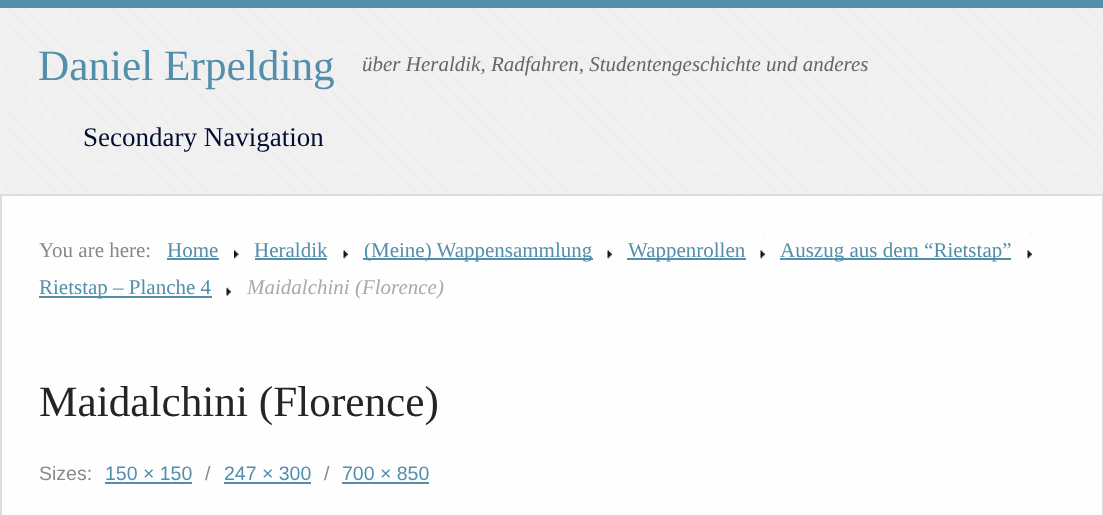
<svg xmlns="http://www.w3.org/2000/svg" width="1103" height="515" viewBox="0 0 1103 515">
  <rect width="100%" height="100%" fill="rgb(241,241,241)"/>
  <image x="2" y="8" width="1100" height="186" href="pic1.png"/>
  <rect x="0" y="0" width="1103" height="8" fill="rgb(83,142,171)"/>
  <text x="38" y="80" font-family="Liberation Serif" font-size="43.25" fill="rgb(83,142,171)">Daniel Erpelding</text>
  <text x="362" y="71" font-family="Liberation Serif" font-size="21" font-style="italic" fill="rgb(102,102,102)">über Heraldik, Radfahren, Studentengeschichte und anderes</text>
  <text x="83" y="146" font-family="Liberation Serif" font-size="27" fill="rgb(0,14,48)">Secondary Navigation</text>
  <rect x="1" y="195" width="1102" height="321" fill="rgb(254,254,254)" stroke="rgb(221,221,221)" stroke-width="2"/>
  <text x="39" y="257" font-family="Liberation Serif" font-size="21" fill="rgb(136,136,136)">You are here:</text>
  <text x="167" y="257" font-family="Liberation Serif" font-size="21" fill="rgb(83,142,171)">Home</text>
  <rect x="167" y="258" width="52" height="2" fill="rgb(83,142,171)"/>
  <image x="234" y="232" width="5" height="27" href="pic2.png"/>
  <text x="254" y="257" font-family="Liberation Serif" font-size="21" fill="rgb(83,142,171)">Heraldik</text>
  <rect x="255" y="258" width="72" height="2" fill="rgb(83,142,171)"/>
  <image x="343" y="232" width="5" height="27" href="pic3.png"/>
  <rect x="363" y="258" width="230" height="2" fill="rgb(83,142,171)"/>
  <text x="364" y="257" font-family="Liberation Serif" font-size="21" fill="rgb(83,142,171)">(Meine) Wappensammlung</text>
  <image x="607" y="232" width="5" height="27" href="pic4.png"/>
  <rect x="627" y="258" width="119" height="2" fill="rgb(83,142,171)"/>
  <text x="628" y="257" font-family="Liberation Serif" font-size="21" fill="rgb(83,142,171)">Wappenrollen</text>
  <image x="760" y="232" width="5" height="27" href="pic3.png"/>
  <rect x="780" y="258" width="231" height="2" fill="rgb(83,142,171)"/>
  <text x="780" y="257" font-family="Liberation Serif" font-size="21" fill="rgb(83,142,171)">Auszug aus dem “Rietstap”</text>
  <image x="1027" y="232" width="5" height="27" href="pic3.png"/>
  <rect x="39" y="296" width="173" height="2" fill="rgb(83,142,171)"/>
  <text x="39" y="294" font-family="Liberation Serif" font-size="21" fill="rgb(83,142,171)">Rietstap – Planche 4</text>
  <image x="226" y="270" width="5" height="26" href="pic5.png"/>
  <text x="247" y="294" font-family="Liberation Serif" font-size="21" font-style="italic" fill="rgb(170,170,170)">Maidalchini (Florence)</text>
  <text x="39" y="416" font-family="Liberation Serif" font-size="43.25" fill="rgb(37,37,37)">Maidalchini (Florence)</text>
  <text x="39" y="480" font-family="Liberation Sans" font-size="19.5" fill="rgb(136,136,136)">Sizes:</text>
  <text x="105" y="480" font-family="Liberation Sans" font-size="19.5" fill="rgb(83,142,171)">150 × 150</text>
  <rect x="105" y="482" width="87" height="2" fill="rgb(83,142,171)"/>
  <text x="205" y="480" font-family="Liberation Sans" font-size="19.5" fill="rgb(136,136,136)">/</text>
  <text x="224" y="480" font-family="Liberation Sans" font-size="19.5" fill="rgb(83,142,171)">247 × 300</text>
  <rect x="224" y="482" width="87" height="2" fill="rgb(83,142,171)"/>
  <text x="324" y="480" font-family="Liberation Sans" font-size="19.5" fill="rgb(136,136,136)">/</text>
  <text x="342" y="480" font-family="Liberation Sans" font-size="19.5" fill="rgb(83,142,171)">700 × 850</text>
  <rect x="342" y="482" width="87" height="2" fill="rgb(83,142,171)"/>
</svg>
